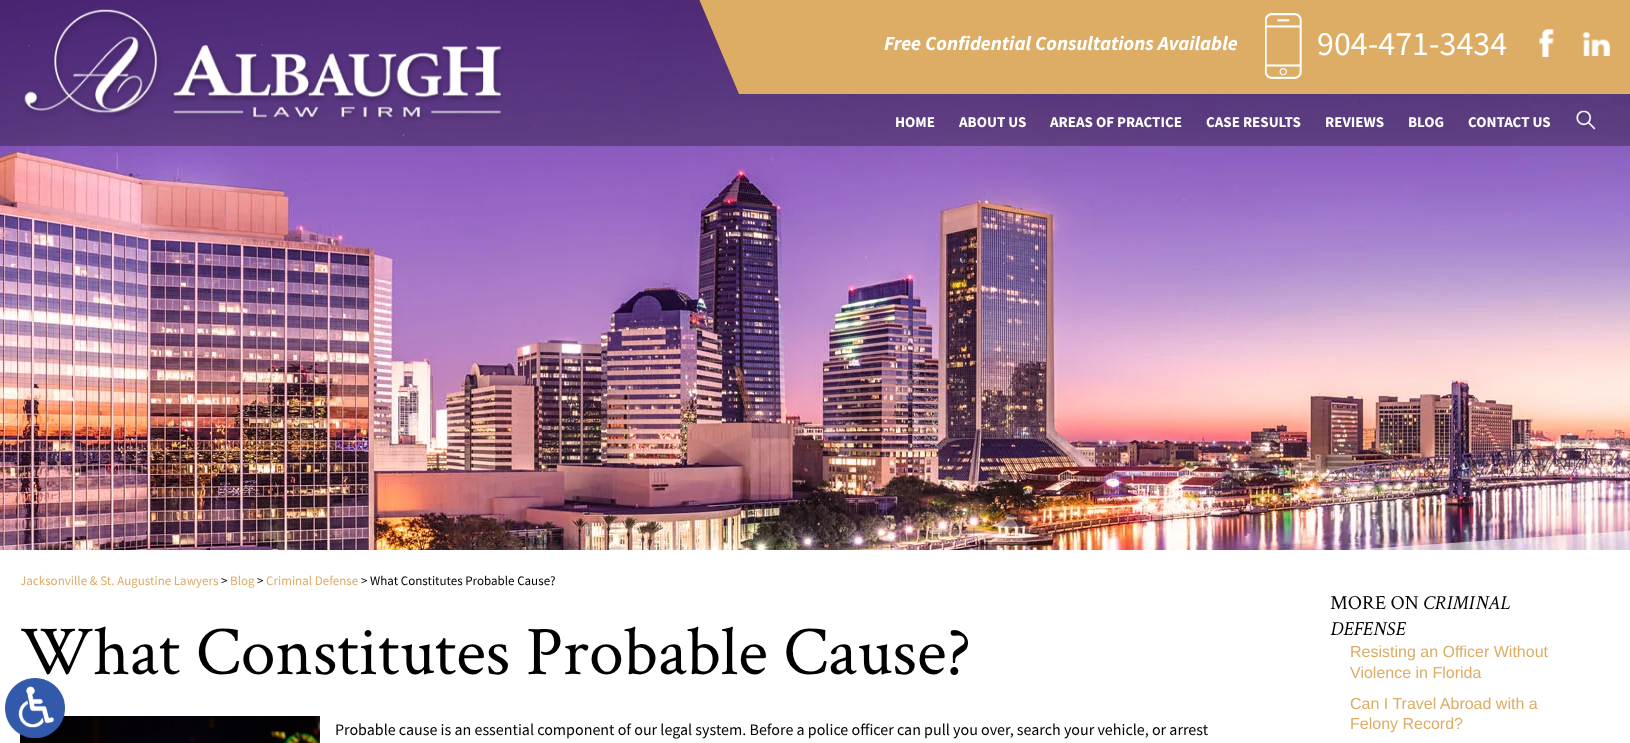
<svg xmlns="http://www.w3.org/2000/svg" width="1630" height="743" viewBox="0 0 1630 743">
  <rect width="100%" height="100%" fill="rgb(255,255,255)"/>
  <image x="0" y="0" width="1630" height="550" href="pic1.png"/>
  <rect x="0" y="0" width="1630" height="146" fill="rgba(0,0,0,0.3)"/>
  <image x="23" y="9" width="480" height="113" href="pic2.png"/>
  <path d="M699-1H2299L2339 94H739Z" fill="rgb(221,172,101)"/>
  <text x="884" y="50" font-family="Source Sans Pro" font-size="20" font-weight="bold" font-style="italic" fill="rgb(255,255,255)">Free Confidential Consultations Available</text>
  <image x="1265" y="13" width="37" height="66" href="pic3.png"/>
  <text x="1317" y="55" font-family="Source Sans Pro" font-size="34" fill="rgb(255,255,255)">904-471-3434</text>
  <image x="1539" y="29" width="15" height="28" href="pic4.png"/>
  <image x="1582" y="32" width="28" height="24" href="pic5.png"/>
  <g font-family="Source Sans Pro" font-size="15" font-weight="bold" fill="rgb(255,255,255)">
    <text x="895" y="127">HOME</text>
    <text x="959" y="127">ABOUT US</text>
    <text x="1050" y="127">AREAS OF PRACTICE</text>
    <text x="1206" y="127">CASE RESULTS</text>
    <text x="1325" y="127">REVIEWS</text>
    <text x="1408" y="127">BLOG</text>
    <text x="1468" y="127">CONTACT US</text>
  </g>
  <image x="1576" y="110" width="21" height="21" href="pic6.png"/>
  <text x="20" y="585" font-family="Source Sans Pro" font-size="13" fill="rgb(221,172,101)">Jacksonville &amp; St. Augustine Lawyers</text>
  <text x="221" y="585" font-family="Source Sans Pro" font-size="13" fill="rgb(0,0,0)">&gt;</text>
  <text x="230" y="585" font-family="Source Sans Pro" font-size="13" fill="rgb(221,172,101)">Blog</text>
  <text x="257" y="585" font-family="Source Sans Pro" font-size="13" fill="rgb(0,0,0)">&gt;</text>
  <text x="266" y="585" font-family="Source Sans Pro" font-size="13" fill="rgb(221,172,101)">Criminal Defense</text>
  <text x="361" y="585" font-family="Source Sans Pro" font-size="13" fill="rgb(0,0,0)">&gt; What Constitutes Probable Cause?</text>
  <text x="20" y="674" font-family="Crimson Text" font-size="70" fill="rgb(0,0,0)">What Constitutes Probable Cause?</text>
  <image x="20" y="716" width="300" height="27" href="pic7.png"/>
  <text x="335" y="735" font-family="Source Sans Pro" font-size="16" fill="rgb(0,0,0)">Probable cause is an essential component of our legal system. Before a police officer can pull you over, search your vehicle, or arrest</text>
  <text x="1330" y="609" font-family="Crimson Text" font-size="20" fill="rgb(0,0,0)">MORE ON</text>
  <g font-family="Crimson Text" font-size="20" font-style="italic" fill="rgb(0,0,0)">
    <text x="1423" y="609">CRIMINAL</text>
    <text x="1330" y="635">DEFENSE</text>
  </g>
  <g font-family="Liberation Sans" font-size="16" fill="rgb(221,172,101)">
    <text>
      <tspan x="1350" y="657">Resisting an Officer Without</tspan>
      <tspan x="1350" y="678">Violence in Florida</tspan>
      <tspan x="1350" y="709">Can I Travel Abroad with a</tspan>
      <tspan x="1350" y="729">Felony Record?</tspan>
    </text>
  </g>
  <image x="5" y="678" width="60" height="60" href="pic8.png"/>
</svg>
